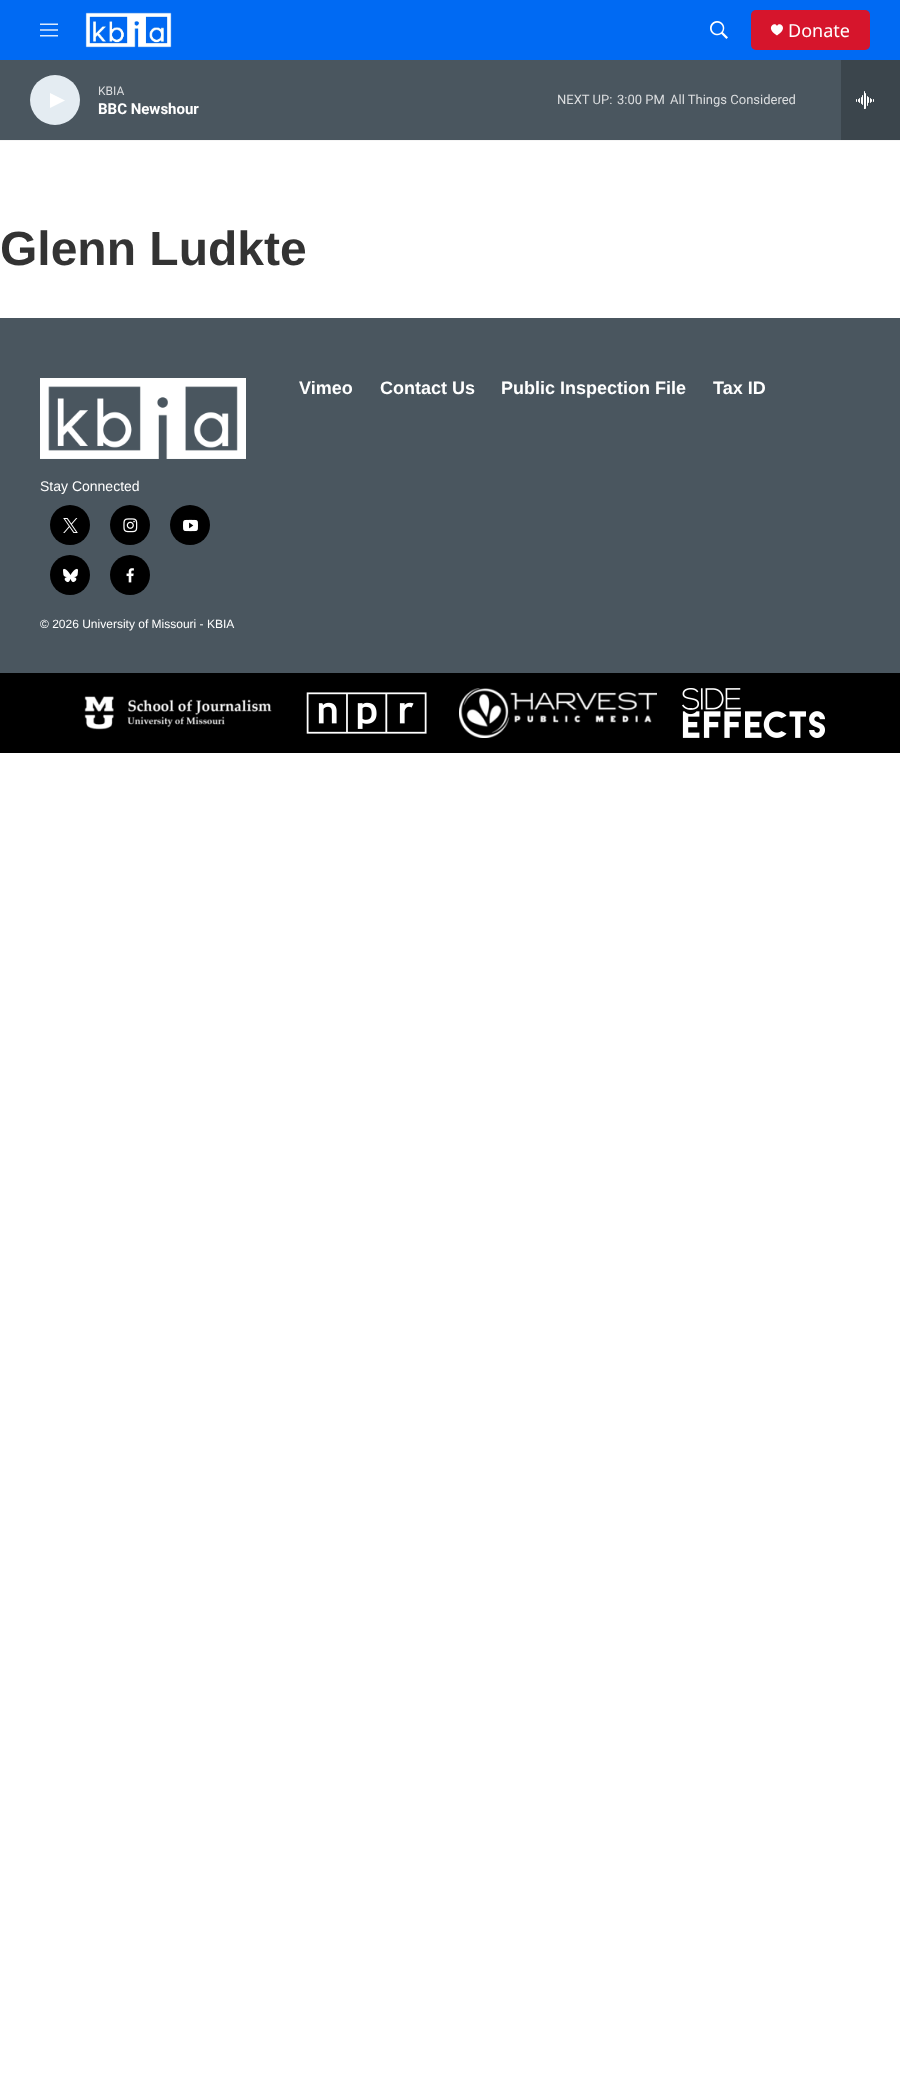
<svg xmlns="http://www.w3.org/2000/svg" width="900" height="2084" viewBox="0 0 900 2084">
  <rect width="100%" height="100%" fill="rgb(255,255,255)"/>
  <rect x="0" y="0" width="900" height="60" fill="rgb(0,106,243)"/>
  <rect x="0" y="140" width="900" height="1" fill="rgb(245,245,245)"/>
  <image x="40" y="23" width="18" height="14" href="pic1.png"/>
  <image x="85" y="12" width="87" height="36" href="pic2.png"/>
  <image x="710" y="21" width="18" height="18" href="pic3.png"/>
  <rect x="751" y="10" width="119" height="40" rx="5" fill="rgb(214,21,44)"/>
  <path d="M777 26C775 21 764.5 28 777 35.5C789.5 28 779 21 777 26Z" fill="rgb(255,255,255)"/>
  <text x="788" y="37" font-family="Noto Sans" font-size="18" fill="rgb(255,255,255)">Donate</text>
  <rect x="0" y="60" width="841" height="80" fill="rgb(74,86,95)"/>
  <circle cx="55" cy="100" r="25" fill="rgb(228,236,242)"/>
  <path d="M50 93L65 100.5L50 108Z" fill="rgb(255,255,255)"/>
  <text x="98" y="95" font-family="Roboto" font-size="12" fill="rgb(219,221,223)">KBIA</text>
  <text x="98" y="114" font-family="Roboto" font-size="15" font-weight="bold" fill="rgb(255,255,255)">BBC Newshour</text>
  <g font-family="Roboto" font-size="13" fill="rgb(219,221,223)">
    <text x="557" y="104">NEXT UP:</text>
    <text x="617" y="104">3:00 PM</text>
    <text x="670" y="104">All Things Considered</text>
  </g>
  <rect x="841" y="60" width="59" height="80" fill="rgb(59,69,76)"/>
  <image x="856" y="91" width="18" height="18" href="pic4.png"/>
  <text x="0" y="265" font-family="Liberation Sans" font-size="48" font-weight="bold" fill="rgb(51,51,51)">Glenn Ludkte</text>
  <rect x="0" y="318" width="900" height="355" fill="rgb(74,86,95)"/>
  <g font-family="Liberation Sans" font-size="18" font-weight="bold" fill="rgb(255,255,255)">
    <text x="299" y="394">Vimeo</text>
    <text x="380" y="394">Contact Us</text>
    <text x="501" y="394">Public Inspection File</text>
    <text x="713" y="394">Tax ID</text>
  </g>
  <image x="40" y="378" width="206" height="81" href="pic5.png"/>
  <text x="40" y="491" font-family="Liberation Sans" font-size="14" fill="rgb(255,255,255)">Stay Connected</text>
  <circle cx="70" cy="525" r="20" fill="rgb(0,0,0)"/>
  <image x="63" y="518" width="15" height="15" href="pic6.png"/>
  <circle cx="130" cy="525" r="20" fill="rgb(0,0,0)"/>
  <image x="123" y="518" width="15" height="15" href="pic7.png"/>
  <circle cx="190" cy="525" r="20" fill="rgb(0,0,0)"/>
  <image x="183" y="519" width="15" height="13" href="pic8.png"/>
  <circle cx="70" cy="575" r="20" fill="rgb(0,0,0)"/>
  <image x="63" y="568" width="15" height="15" href="pic9.png"/>
  <circle cx="130" cy="575" r="20" fill="rgb(0,0,0)"/>
  <image x="126" y="568" width="8" height="15" href="pic10.png"/>
  <text x="40" y="628" font-family="Liberation Sans" font-size="12" fill="rgb(255,255,255)">© 2026 University of Missouri - KBIA</text>
  <rect x="0" y="673" width="900" height="80" fill="rgb(0,0,0)"/>
  <image x="84" y="696" width="188" height="34" href="pic11.png"/>
  <image x="306" y="692" width="121" height="42" href="pic12.png"/>
  <image x="459" y="688" width="198" height="50" href="pic13.png"/>
  <image x="682" y="688" width="143" height="50" href="pic14.png"/>
</svg>
